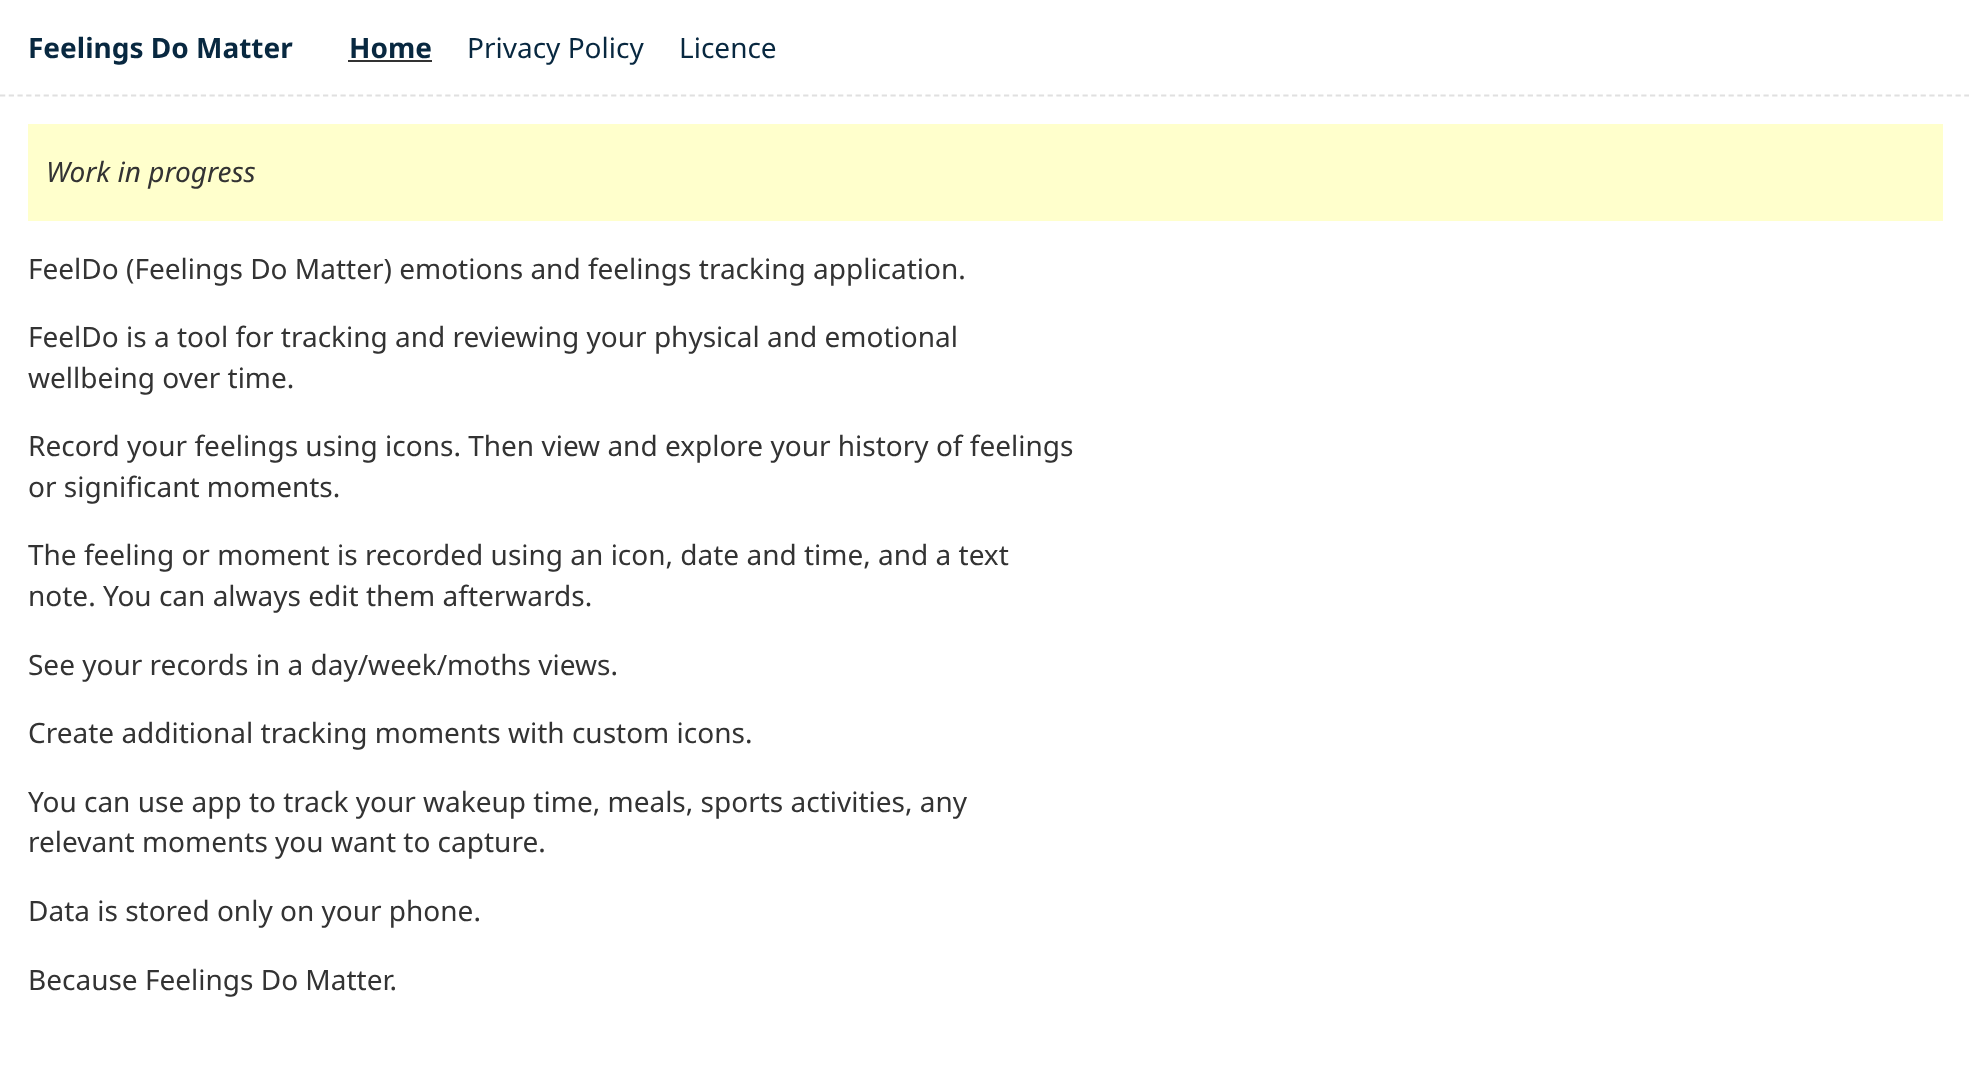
<svg xmlns="http://www.w3.org/2000/svg" width="1969" height="1067" viewBox="0 0 1969 1067">
  <rect width="100%" height="100%" fill="rgb(255,255,255)"/>
  <path d="M0 95.5H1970.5" fill="none" stroke="rgb(224,224,224)" stroke-width="1.8" stroke-dasharray="5.25 3.48"/>
  <g font-family="Noto Sans" font-size="28" font-weight="bold" fill="rgb(8,40,64)">
    <text x="28" y="58">Feelings Do Matter</text>
    <text x="349" y="58">Home</text>
  </g>
  <rect x="348" y="60" width="84" height="2" fill="rgb(51,51,51)"/>
  <g font-family="Noto Sans" font-size="28" fill="rgb(8,40,64)">
    <text x="467" y="58">Privacy Policy</text>
    <text x="679" y="58">Licence</text>
  </g>
  <rect x="28" y="124" width="1915" height="97" fill="rgb(255,255,204)"/>
  <text x="46" y="182" font-family="Noto Sans" font-size="28" font-style="italic" fill="rgb(51,51,51)">Work in progress</text>
  <g font-family="Noto Sans" font-size="28" fill="rgb(51,51,51)">
    <text x="28" y="279">FeelDo (Feelings Do Matter) emotions and feelings tracking application.</text>
    <text>
      <tspan x="28" y="347">FeelDo is a tool for tracking and reviewing your physical and emotional</tspan>
      <tspan x="28" y="388">wellbeing over time.</tspan>
    </text>
    <text>
      <tspan x="28" y="456">Record your feelings using icons. Then view and explore your history of feelings</tspan>
      <tspan x="28" y="497">or significant moments.</tspan>
    </text>
    <text>
      <tspan x="28" y="565">The feeling or moment is recorded using an icon, date and time, and a text</tspan>
      <tspan x="28" y="606">note. You can always edit them afterwards.</tspan>
    </text>
    <text x="28" y="675">See your records in a day/week/moths views.</text>
    <text x="28" y="743">Create additional tracking moments with custom icons.</text>
    <text>
      <tspan x="28" y="812">You can use app to track your wakeup time, meals, sports activities, any</tspan>
      <tspan x="28" y="852">relevant moments you want to capture.</tspan>
    </text>
    <text x="28" y="921">Data is stored only on your phone.</text>
    <text x="28" y="990">Because Feelings Do Matter.</text>
  </g>
</svg>
